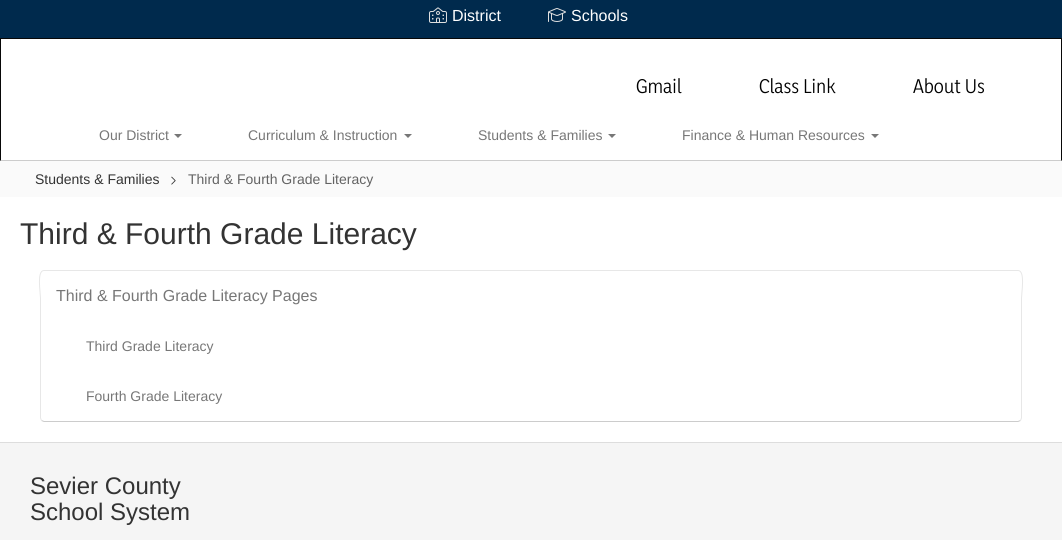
import math
import cairocffi as cairo

surface = cairo.ImageSurface(cairo.FORMAT_RGB24, 1062, 540)
cr = cairo.Context(surface)
options = cairo.FontOptions()
options.set_hint_metrics(cairo.HINT_METRICS_OFF)
options.set_hint_style(cairo.HINT_STYLE_NONE)
cr.set_font_options(options)
cr.set_miter_limit(4)


def use_color(code):
    cr.set_source_rgb(*(v / 255 for v in bytes.fromhex(code[-6:])))


def picture(path, x, y, w, h):
    cr.save()
    cr.set_source_surface(cairo.ImageSurface.create_from_png(path), x, y)
    cr.rectangle(x, y, w, h)
    cr.fill()
    cr.restore()


use_color("#ffffff")
cr.paint()
use_color("#002a4d")
cr.rectangle(0, 0, 1062, 38)
cr.fill()
picture("img1.png", 429, 7, 18, 16)
cr.select_font_face("Liberation Sans")
cr.set_font_size(16)
use_color("#ffffff")
cr.move_to(452, 21)
cr.show_text("District")
picture("img2.png", 548, 8, 18, 14)
cr.move_to(571, 21)
cr.show_text("Schools")
use_color("#080808")
cr.rectangle(0, 38, 1062, 1)
cr.fill()
cr.new_path()
cr.move_to(1062, 38)
cr.line_to(1062, 161)
cr.line_to(1061, 160)
cr.line_to(1061, 39)
cr.close_path()
cr.fill()
cr.set_source_rgba(0, 0, 0, 0.2)
cr.new_path()
cr.move_to(1062, 161)
cr.line_to(0, 161)
cr.line_to(1, 160)
cr.line_to(1061, 160)
cr.close_path()
cr.fill()
use_color("#080808")
cr.new_path()
cr.move_to(0, 161)
cr.line_to(0, 38)
cr.line_to(1, 39)
cr.line_to(1, 160)
cr.close_path()
cr.fill()
cr.select_font_face("Yaldevi")
cr.set_font_size(18)
use_color("#000000")
cr.move_to(636, 93)
cr.show_text("Gmail")
cr.move_to(759, 93)
cr.show_text("Class Link")
cr.move_to(913, 93)
cr.show_text("About Us")
cr.select_font_face("Liberation Sans")
cr.set_font_size(14)
use_color("#777777")
cr.move_to(99, 140)
cr.show_text("Our District")
cr.new_path()
cr.move_to(174, 134)
cr.line_to(182, 134)
cr.line_to(178, 138)
cr.close_path()
cr.fill()
cr.move_to(248, 140)
cr.show_text("Curriculum & Instruction")
cr.new_path()
cr.move_to(404, 134)
cr.line_to(412, 134)
cr.line_to(408, 138)
cr.close_path()
cr.fill()
cr.move_to(478, 140)
cr.show_text("Students & Families")
cr.new_path()
cr.move_to(608, 134)
cr.line_to(616, 134)
cr.line_to(612, 138)
cr.close_path()
cr.fill()
cr.move_to(682, 140)
cr.show_text("Finance & Human Resources")
cr.new_path()
cr.move_to(871, 134)
cr.line_to(879, 134)
cr.line_to(875, 138)
cr.close_path()
cr.fill()
use_color("#fafafa")
cr.rectangle(0, 161, 1062, 36)
cr.fill()
use_color("#333333")
cr.move_to(35, 184)
cr.show_text("Students & Families")
picture("img3.png", 171, 176, 5, 9)
use_color("#636363")
cr.move_to(188, 184)
cr.show_text("Third & Fourth Grade Literacy")
cr.set_font_size(30)
use_color("#333333")
cr.move_to(20, 244)
cr.show_text("Third & Fourth Grade Literacy")
cr.new_path()
cr.move_to(1020.5, 420.5)
cr.line_to(1018, 421.5)
cr.line_to(44, 421.5)
cr.line_to(41.5, 420.5)
use_color("#cccccc")
cr.set_line_width(1)
cr.stroke()
cr.new_path()
cr.move_to(41.5, 420.5)
cr.line_to(40.5, 418)
cr.line_to(40.5, 298)
cr.curve_to(40.5, 293, 36.5, 270.5, 44, 270.5)
cr.line_to(1018, 270.5)
cr.curve_to(1025.5, 270.5, 1021.5, 293, 1021.5, 298)
cr.line_to(1021.5, 418)
cr.line_to(1020.5, 420.5)
use_color("#e7e7e7")
cr.stroke()
cr.set_font_size(16)
use_color("#777777")
cr.move_to(56, 301)
cr.show_text("Third & Fourth Grade Literacy Pages")
cr.set_font_size(14)
cr.move_to(86, 351)
cr.show_text("Third Grade Literacy")
cr.move_to(86, 401)
cr.show_text("Fourth Grade Literacy")
use_color("#f5f5f5")
cr.rectangle(0, 443, 1062, 97)
cr.fill()
use_color("#dddddd")
cr.rectangle(0, 442, 1062, 1)
cr.fill()
cr.set_font_size(24)
use_color("#333333")
cr.move_to(30, 494)
cr.show_text("Sevier County")
cr.move_to(30, 520)
cr.show_text("School System")
surface.write_to_png("result.png")
